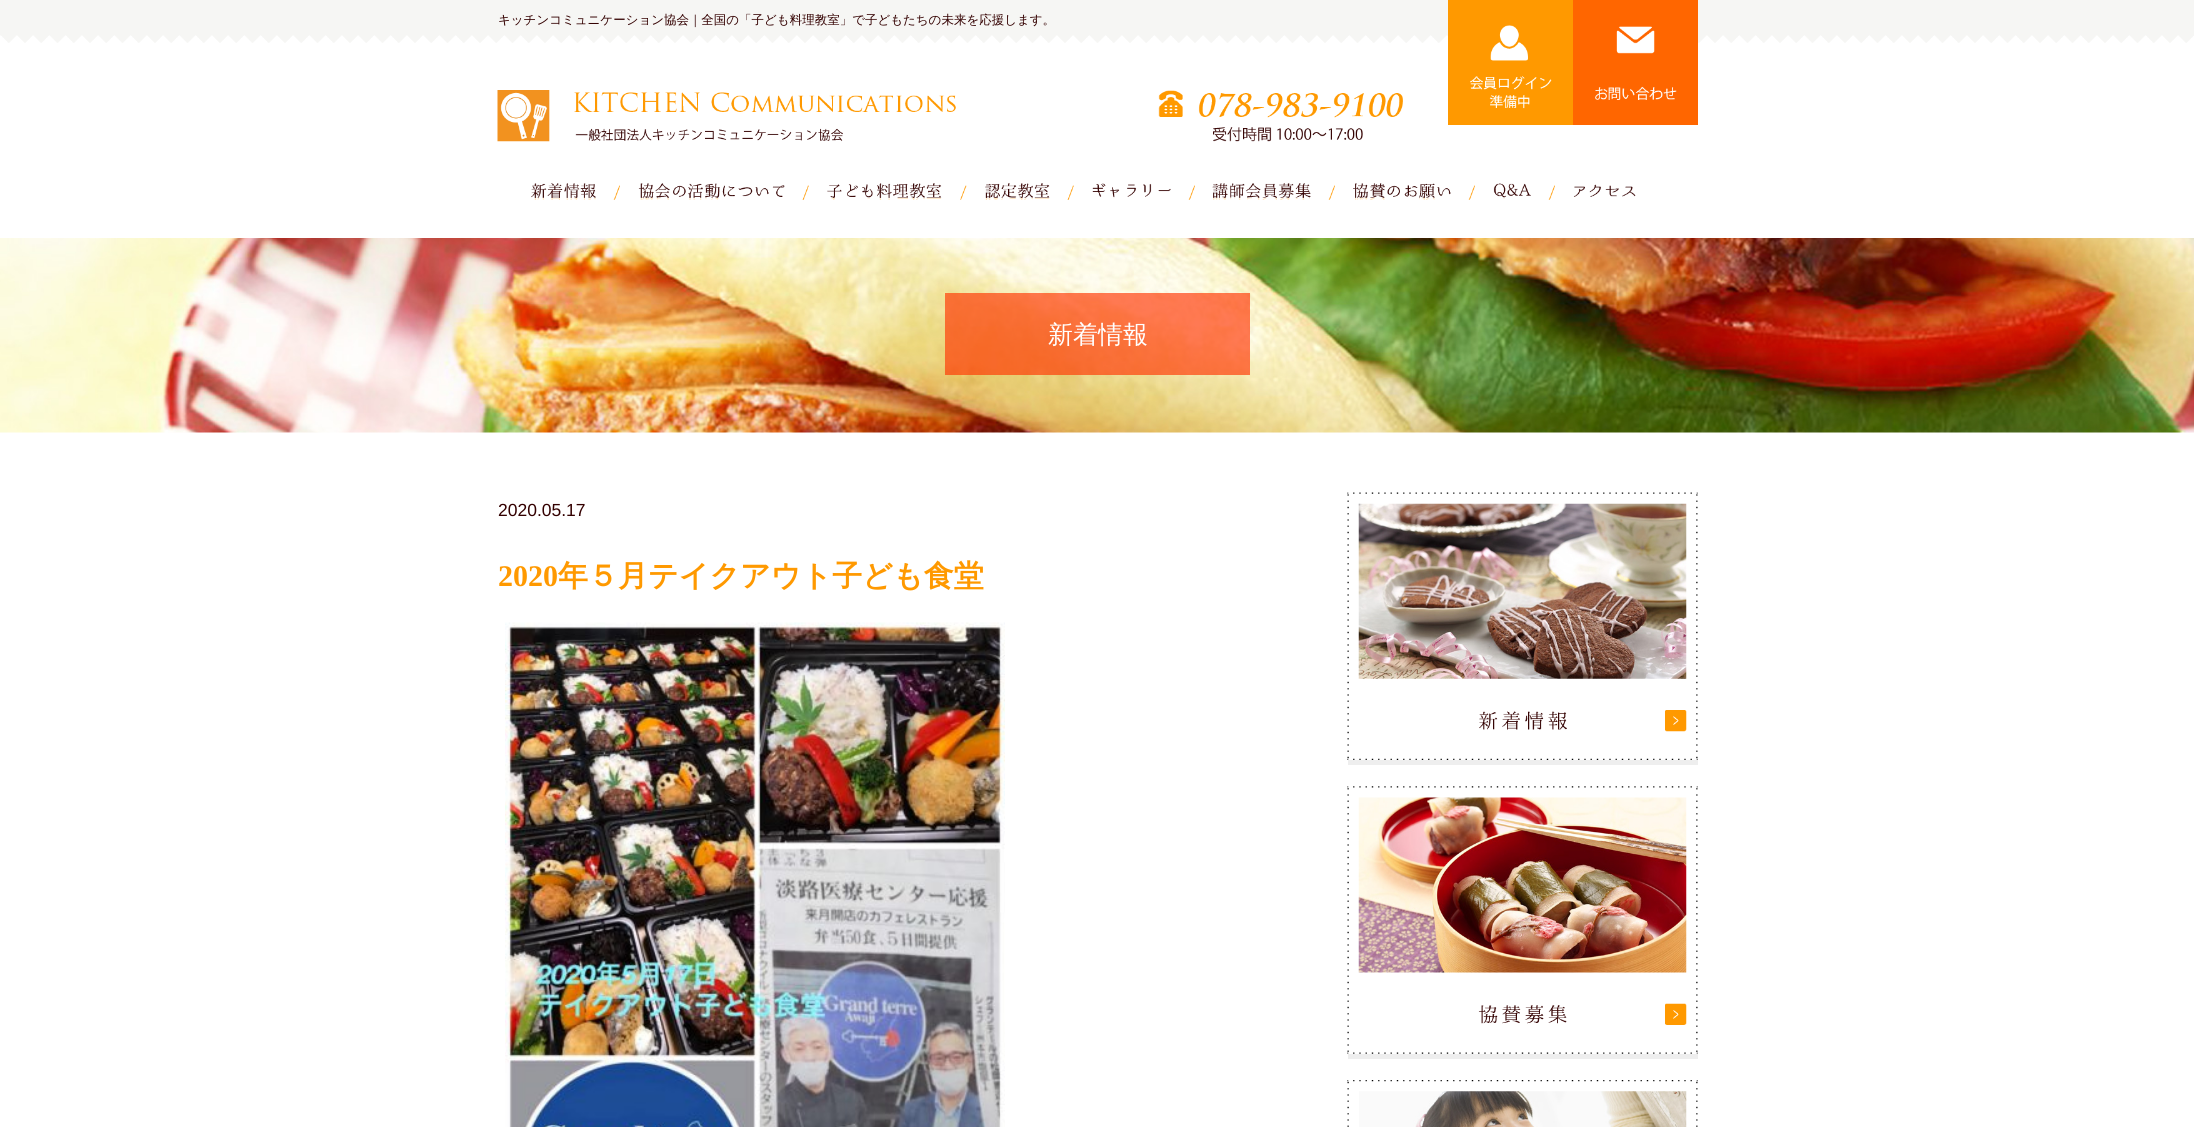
import math
import cairocffi as cairo

surface = cairo.ImageSurface(cairo.FORMAT_RGB24, 2194, 1127)
cr = cairo.Context(surface)
options = cairo.FontOptions()
options.set_hint_metrics(cairo.HINT_METRICS_OFF)
options.set_hint_style(cairo.HINT_STYLE_NONE)
cr.set_font_options(options)
cr.set_miter_limit(4)


def use_color(code):
    cr.set_source_rgb(*(v / 255 for v in bytes.fromhex(code[-6:])))


def picture(path, x, y, w, h):
    cr.save()
    cr.set_source_surface(cairo.ImageSurface.create_from_png(path), x, y)
    cr.rectangle(x, y, w, h)
    cr.fill()
    cr.restore()


use_color("#ffffff")
cr.paint()
picture("img1.png", 0, 0, 2194, 43)
cr.select_font_face("WenQuanYi Zen Hei Medium")
cr.set_font_size(12.5)
use_color("#330000")
cr.move_to(498, 24)
cr.show_text("キッチンコミュニケーション協会｜全国の「子ども料理教室」で子どもたちの未来を応援します。")
use_color("#ff9900")
cr.rectangle(1448, 0, 125, 125)
cr.fill()
picture("img2.png", 1470, 25, 82, 84)
use_color("#ff6600")
cr.rectangle(1573, 0, 125, 125)
cr.fill()
picture("img3.png", 1595, 26, 82, 74)
picture("img4.png", 497, 90, 459, 52)
picture("img5.png", 1158, 90, 245, 52)
picture("img19.png", 531, 198, 65, 2)
picture("img6.png", 531, 183, 65, 16)
picture("img7.png", 613, 185, 7, 15)
picture("img20.png", 638, 198, 147, 2)
picture("img8.png", 638, 183, 147, 16)
picture("img9.png", 802, 185, 7, 15)
picture("img21.png", 827, 198, 115, 2)
picture("img10.png", 827, 183, 115, 16)
picture("img11.png", 960, 185, 7, 15)
picture("img22.png", 985, 198, 65, 2)
picture("img12.png", 985, 183, 65, 16)
picture("img9.png", 1067, 185, 7, 15)
picture("img23.png", 1092, 198, 79, 1)
picture("img13.png", 1092, 183, 79, 16)
picture("img7.png", 1188, 185, 7, 15)
picture("img24.png", 1212, 198, 99, 2)
picture("img14.png", 1212, 183, 99, 16)
picture("img7.png", 1328, 185, 7, 15)
picture("img25.png", 1353, 198, 98, 2)
picture("img15.png", 1353, 183, 98, 16)
picture("img7.png", 1468, 185, 7, 15)
picture("img26.png", 1493, 198, 38, 1)
picture("img16.png", 1493, 183, 38, 16)
picture("img17.png", 1548, 185, 7, 15)
picture("img18.png", 1573, 184, 63, 14)
picture("img27.png", 0, 238, 2194, 195)
cr.set_source_rgba(1, 0.2, 0, 0.65)
cr.rectangle(945, 293, 305, 82)
cr.fill()
cr.set_font_size(25)
use_color("#ffffff")
cr.move_to(1048, 343)
cr.show_text("新着情報")
cr.select_font_face("Liberation Sans")
cr.set_font_size(17.5)
use_color("#330000")
cr.move_to(498, 516)
cr.show_text("2020.05.17")
cr.select_font_face("Liberation Serif", cairo.FONT_SLANT_NORMAL, cairo.FONT_WEIGHT_BOLD)
cr.set_font_size(30)
use_color("#ff9900")
cr.move_to(498, 586)
cr.show_text("2020")
cr.select_font_face("WenQuanYi Zen Hei", cairo.FONT_SLANT_NORMAL, cairo.FONT_WEIGHT_BOLD)
cr.move_to(558, 586)
cr.show_text("年５月テイクアウト子ども食堂")
picture("img28.png", 505, 622, 500, 505)
use_color("#eeeeee")
cr.rectangle(1348, 760, 350, 5)
cr.fill()
picture("img29.png", 1347, 492, 351, 268)
picture("img30.png", 1358, 503, 329, 176)
picture("img31.png", 1665, 710, 22, 22)
picture("img32.png", 1479, 711, 88, 19)
cr.rectangle(1348, 1054, 350, 5)
cr.fill()
picture("img33.png", 1347, 786, 351, 268)
picture("img34.png", 1358, 797, 329, 176)
picture("img35.png", 1665, 1003, 22, 22)
picture("img36.png", 1478, 1005, 89, 19)
picture("img37.png", 1347, 1080, 351, 47)
picture("img38.png", 1359, 1091, 328, 36)
surface.write_to_png("result.png")
